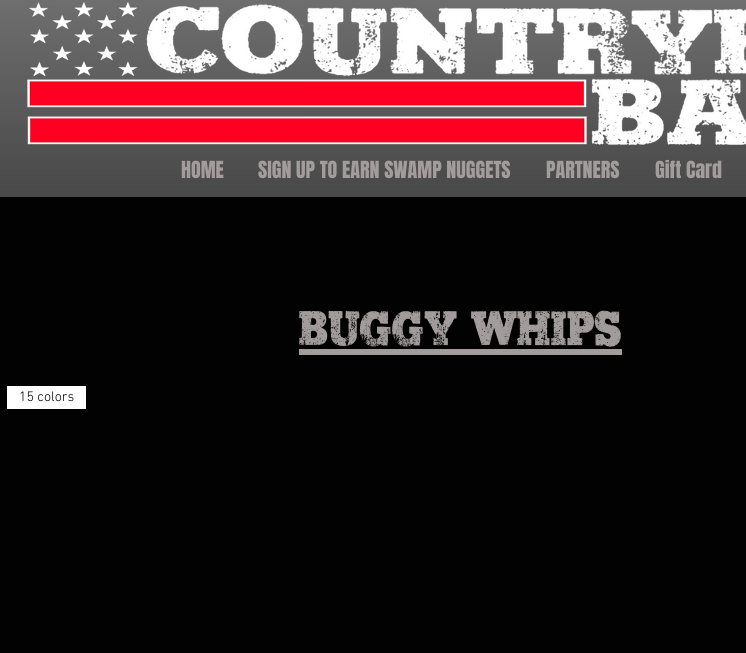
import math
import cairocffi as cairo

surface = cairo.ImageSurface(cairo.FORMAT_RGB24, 746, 653)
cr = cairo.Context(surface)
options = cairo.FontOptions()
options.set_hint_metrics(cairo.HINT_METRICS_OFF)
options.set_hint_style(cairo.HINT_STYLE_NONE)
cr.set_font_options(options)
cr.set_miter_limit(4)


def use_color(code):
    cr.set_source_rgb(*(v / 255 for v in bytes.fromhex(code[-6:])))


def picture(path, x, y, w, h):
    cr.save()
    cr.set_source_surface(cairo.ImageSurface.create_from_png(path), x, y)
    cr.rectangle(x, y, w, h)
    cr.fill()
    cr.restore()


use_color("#020202")
cr.paint()
use_color("#3d3c3c")
cr.rectangle(0, 0, 746, 197)
cr.fill()
picture("img1.png", 0, 0, 746, 197)
picture("img2.png", 27, 2, 719, 144)
cr.select_font_face("Anton")
cr.set_font_size(20)
use_color("#a29c9c")
cr.move_to(181, 178)
cr.show_text("HOME")
cr.move_to(258, 178)
cr.show_text("SIGN UP TO EARN SWAMP NUGGETS")
cr.move_to(546, 178)
cr.show_text("PARTNERS")
cr.move_to(655, 178)
cr.show_text("Gift Card")
cr.select_font_face("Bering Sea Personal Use")
cr.set_font_size(61)
cr.move_to(299, 345)
cr.show_text("buggy whips")
cr.rectangle(299, 349, 323, 6)
cr.fill()
use_color("#ffffff")
cr.rectangle(7, 386, 79, 23)
cr.fill()
cr.select_font_face("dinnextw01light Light")
cr.set_font_size(14)
use_color("#020202")
cr.move_to(19, 401)
cr.show_text("15 colors")
surface.write_to_png("result.png")
